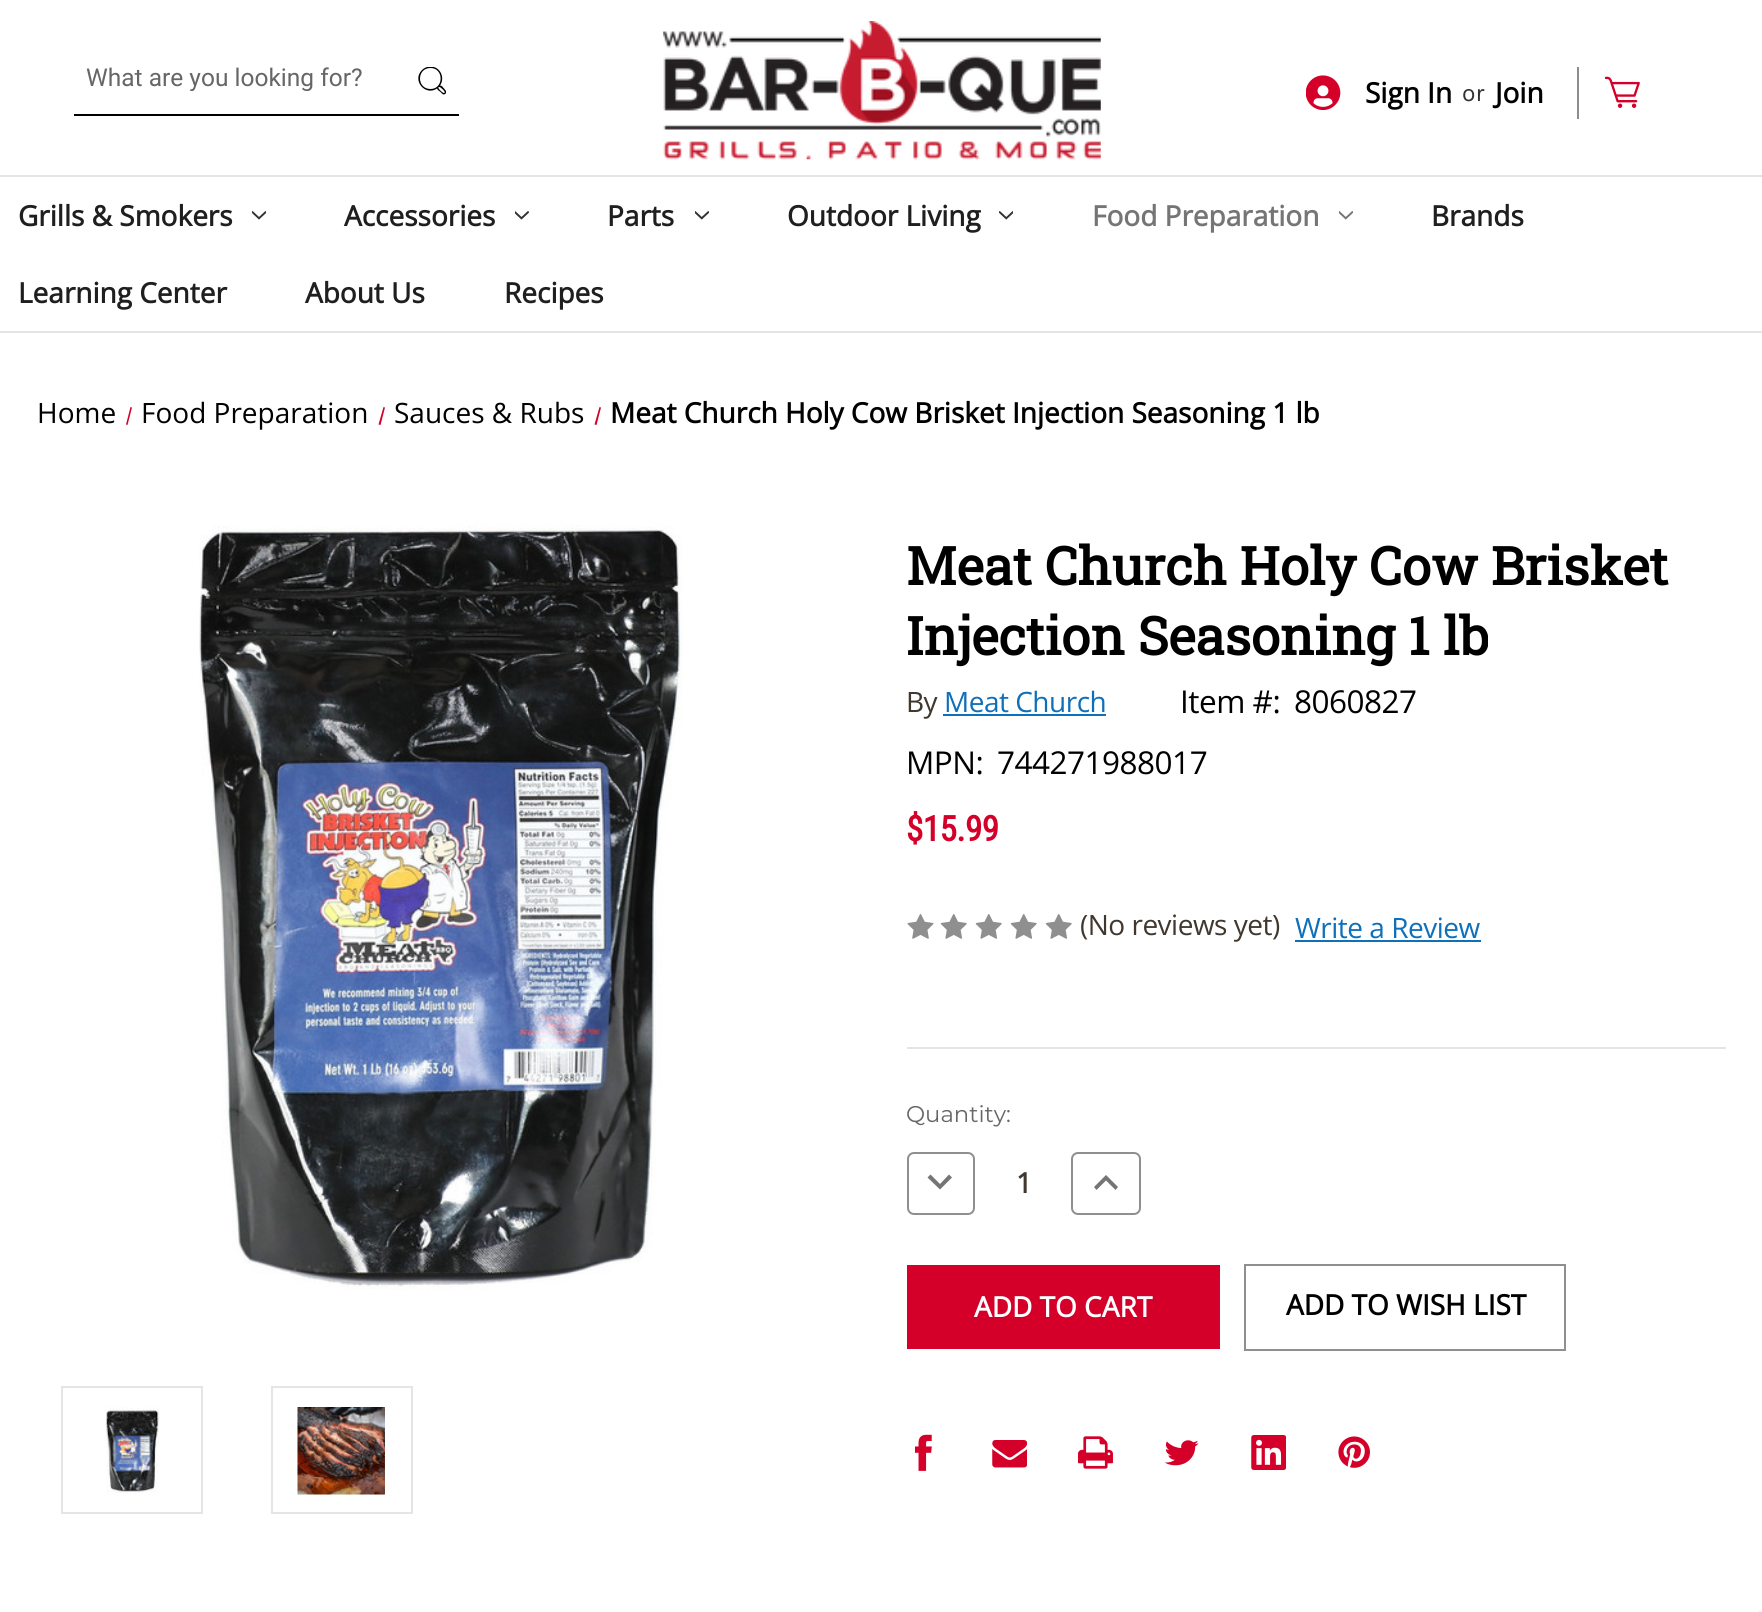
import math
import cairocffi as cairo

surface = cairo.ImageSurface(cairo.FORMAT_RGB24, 1762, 1612)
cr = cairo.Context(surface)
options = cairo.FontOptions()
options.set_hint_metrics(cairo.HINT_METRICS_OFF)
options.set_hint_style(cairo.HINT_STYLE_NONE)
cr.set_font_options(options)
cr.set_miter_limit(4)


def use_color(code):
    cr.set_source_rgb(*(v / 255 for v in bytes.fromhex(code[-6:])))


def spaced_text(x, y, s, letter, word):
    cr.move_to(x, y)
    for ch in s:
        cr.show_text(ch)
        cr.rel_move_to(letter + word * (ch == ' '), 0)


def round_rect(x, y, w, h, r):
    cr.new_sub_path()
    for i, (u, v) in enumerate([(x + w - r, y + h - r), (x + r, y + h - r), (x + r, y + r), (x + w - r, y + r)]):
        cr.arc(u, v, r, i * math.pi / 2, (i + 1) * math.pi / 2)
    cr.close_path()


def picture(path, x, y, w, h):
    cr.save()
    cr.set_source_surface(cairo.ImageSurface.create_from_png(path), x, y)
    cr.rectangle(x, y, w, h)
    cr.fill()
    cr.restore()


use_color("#ffffff")
cr.paint()
use_color("#e5e5e5")
cr.rectangle(0, 331, 1762, 2)
cr.fill()
picture("img1.png", 663, 21, 438, 139)
use_color("#000000")
cr.rectangle(74, 114, 385, 2)
cr.fill()
cr.save()
cr.rectangle(86, 63, 360, 28)
cr.clip()
cr.select_font_face("Roboto")
cr.set_font_size(24.5)
use_color("#666666")
cr.move_to(86, 86)
cr.show_text("What are you looking for?")
cr.restore()
cr.save()
cr.rectangle(418, 67, 28, 28)
cr.clip()
cr.new_path()
cr.move_to(430.5, 66.5)
cr.curve_to(440, 66.5, 445.5, 77.5, 440, 85.5)
cr.curve_to(442, 85.5, 443, 87.5, 444, 88.5)
cr.line_to(446, 91)
cr.curve_to(447, 93, 444.5, 95.5, 442.5, 94)
cr.line_to(440, 91.5)
cr.curve_to(439, 91, 437.5, 90, 437, 88.5)
cr.curve_to(425.5, 96.5, 411.5, 80.5, 422, 70)
cr.curve_to(424, 68, 427, 66.5, 430.5, 66.5)
cr.close_path()
cr.move_to(439.5, 87)
cr.curve_to(435.5, 87, 443, 93, 443.5, 93)
cr.curve_to(447.5, 93, 440.5, 87, 439.5, 87)
cr.close_path()
cr.move_to(430.5, 68)
cr.curve_to(416.5, 68, 416.5, 89, 430.5, 89)
cr.curve_to(444, 89, 444, 68, 430.5, 68)
cr.close_path()
cr.fill()
cr.restore()
picture("img2.png", 1306, 75, 35, 35)
cr.select_font_face("Open Sans", cairo.FONT_SLANT_NORMAL, cairo.FONT_WEIGHT_BOLD)
cr.set_font_size(28)
cr.move_to(1365, 103)
cr.show_text("Sign In")
cr.select_font_face("Karla")
cr.set_font_size(24.5)
use_color("#333333")
cr.move_to(1462, 101)
cr.show_text("or")
cr.select_font_face("Open Sans", cairo.FONT_SLANT_NORMAL, cairo.FONT_WEIGHT_BOLD)
cr.set_font_size(28)
use_color("#000000")
cr.move_to(1495, 103)
cr.show_text("Join")
use_color("#8a8e90")
cr.rectangle(1577, 67, 2, 52)
cr.fill()
picture("img3.png", 1605, 76, 35, 32)
use_color("#e5e5e5")
cr.rectangle(0, 175, 1762, 2)
cr.fill()
use_color("#1f1f1f")
cr.move_to(18, 226)
cr.show_text("Grills & Smokers")
picture("img4.png", 252, 211, 14, 9)
cr.move_to(344, 226)
cr.show_text("Accessories")
picture("img5.png", 515, 211, 14, 9)
cr.move_to(607, 226)
cr.show_text("Parts")
picture("img6.png", 695, 211, 14, 9)
cr.move_to(787, 226)
cr.show_text("Outdoor Living")
picture("img7.png", 999, 211, 14, 9)
use_color("#757575")
cr.move_to(1092, 226)
cr.show_text("Food Preparation")
picture("img8.png", 1339, 211, 14, 9)
use_color("#1f1f1f")
cr.move_to(1431, 226)
cr.show_text("Brands")
cr.move_to(18, 303)
cr.show_text("Learning Center")
cr.move_to(305, 303)
cr.show_text("About Us")
cr.move_to(504, 303)
cr.show_text("Recipes")
cr.select_font_face("Open Sans")
use_color("#000000")
cr.move_to(37, 423)
cr.show_text("Home")
use_color("#d40029")
cr.new_path()
cr.move_to(130.5, 407)
cr.line_to(132, 407.5)
cr.line_to(127.5, 425)
cr.line_to(126, 424.5)
cr.close_path()
cr.fill()
use_color("#000000")
cr.move_to(141, 423)
cr.show_text("Food Preparation")
use_color("#d40029")
cr.new_path()
cr.move_to(383.5, 407)
cr.line_to(385, 407.5)
cr.line_to(380.5, 425)
cr.line_to(378.5, 424.5)
cr.close_path()
cr.fill()
use_color("#000000")
cr.move_to(394, 423)
cr.show_text("Sauces & Rubs")
use_color("#d40029")
cr.new_path()
cr.move_to(599.5, 407)
cr.line_to(601, 407.5)
cr.line_to(596.5, 425)
cr.line_to(594.5, 424.5)
cr.close_path()
cr.fill()
cr.select_font_face("Open Sans", cairo.FONT_SLANT_NORMAL, cairo.FONT_WEIGHT_BOLD)
use_color("#000000")
cr.move_to(610, 423)
cr.show_text("Meat Church Holy Cow Brisket Injection Seasoning 1 lb")
picture("img9.png", 199, 525, 484, 765)
cr.rectangle(62, 1387, 140, 126)
use_color("#e5e5e5")
cr.stroke()
picture("img10.png", 106, 1407, 53, 87)
cr.rectangle(272, 1387, 140, 126)
cr.stroke()
picture("img11.png", 297, 1407, 88, 88)
cr.rectangle(907, 1047, 819, 2)
cr.fill()
cr.select_font_face("Roboto Slab", cairo.FONT_SLANT_NORMAL, cairo.FONT_WEIGHT_BOLD)
cr.set_font_size(52.5)
use_color("#000000")
cr.move_to(906, 585)
cr.show_text("Meat Church Holy Cow Brisket")
cr.move_to(906, 655)
cr.show_text("Injection Seasoning 1 lb")
cr.select_font_face("Open Sans")
cr.set_font_size(28)
use_color("#40372e")
spaced_text(906, 712, "By", -0.5, 0)
use_color("#0e6fba")
spaced_text(944, 712, "Meat Church", -0.5, 0)
cr.rectangle(943, 714, 163, 2)
cr.fill()
cr.set_font_size(31.5)
use_color("#000000")
spaced_text(1180, 713, "Item #:", -0.5, 0)
spaced_text(1294, 713, "8060827", -0.5, 0)
spaced_text(906, 774, "MPN:", -0.5, 0)
spaced_text(997, 774, "744271988017", -0.5, 0)
cr.select_font_face("Roboto Condensed", cairo.FONT_SLANT_NORMAL, cairo.FONT_WEIGHT_BOLD)
cr.set_font_size(35)
use_color("#d40029")
spaced_text(906, 841, "$15.99", -0.5, 0)
picture("img12.png", 907, 914, 27, 25)
picture("img13.png", 940, 914, 27, 25)
picture("img13.png", 975, 914, 27, 25)
picture("img13.png", 1010, 914, 27, 25)
picture("img13.png", 1045, 914, 27, 25)
cr.select_font_face("Open Sans")
cr.set_font_size(28)
use_color("#40372e")
spaced_text(1080, 935, "(No reviews yet)", -0.5, 0)
use_color("#0e6fba")
spaced_text(1295, 938, "Write a Review", -0.5, 0)
cr.rectangle(1295, 940, 186, 2)
cr.fill()
cr.select_font_face("Montserrat")
cr.set_font_size(22.75)
use_color("#666666")
cr.move_to(906, 1122)
cr.show_text("Quantity:")
round_rect(908, 1153, 66, 61, 6)
use_color("#8f8f8f")
cr.stroke()
use_color("#757575")
cr.new_path()
cr.move_to(930.5, 1174.5)
cr.line_to(940, 1184)
cr.line_to(949, 1174.5)
cr.line_to(952, 1177.5)
cr.line_to(940, 1189.5)
cr.line_to(927.5, 1177.5)
cr.close_path()
cr.fill()
cr.select_font_face("Open Sans", cairo.FONT_SLANT_NORMAL, cairo.FONT_WEIGHT_BOLD)
cr.set_font_size(28)
use_color("#40372e")
spaced_text(1016, 1193, "1", -0.5, 0)
round_rect(1072, 1153, 68, 61, 6)
use_color("#8f8f8f")
cr.stroke()
use_color("#757575")
cr.new_path()
cr.move_to(1096.5, 1190)
cr.line_to(1106, 1180.5)
cr.line_to(1115.5, 1190)
cr.line_to(1118, 1187)
cr.line_to(1106, 1175)
cr.line_to(1094, 1187)
cr.close_path()
cr.fill()
use_color("#d40029")
cr.rectangle(907, 1265, 313, 84)
cr.fill()
use_color("#ffffff")
cr.move_to(974, 1317)
cr.show_text("ADD TO CART")
cr.rectangle(1245, 1265, 320, 85)
use_color("#8f8f8f")
cr.stroke()
use_color("#000000")
cr.move_to(1286, 1315)
cr.show_text("ADD TO WISH LIST")
picture("img14.png", 914, 1434, 18, 37)
picture("img15.png", 992, 1440, 35, 28)
picture("img16.png", 1078, 1436, 35, 33)
picture("img17.png", 1164, 1440, 35, 26)
picture("img18.png", 1251, 1435, 35, 35)
picture("img19.png", 1338, 1436, 32, 32)
use_color("#f5f5f5")
cr.rectangle(1759, 1610, 3, 2)
cr.fill()
surface.write_to_png("result.png")
